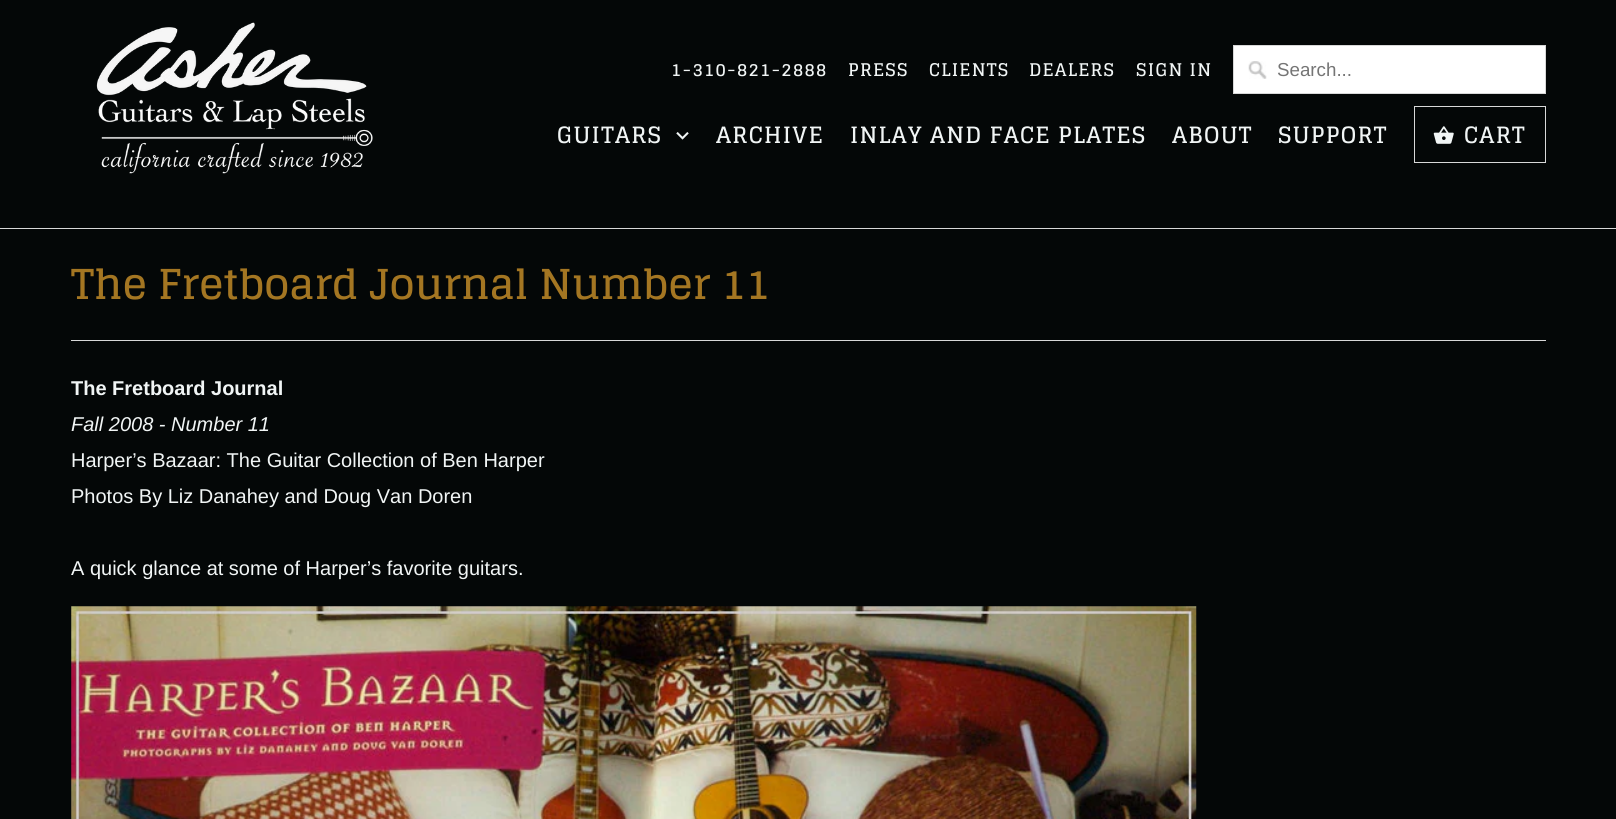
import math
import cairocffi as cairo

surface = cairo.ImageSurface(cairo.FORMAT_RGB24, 1616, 819)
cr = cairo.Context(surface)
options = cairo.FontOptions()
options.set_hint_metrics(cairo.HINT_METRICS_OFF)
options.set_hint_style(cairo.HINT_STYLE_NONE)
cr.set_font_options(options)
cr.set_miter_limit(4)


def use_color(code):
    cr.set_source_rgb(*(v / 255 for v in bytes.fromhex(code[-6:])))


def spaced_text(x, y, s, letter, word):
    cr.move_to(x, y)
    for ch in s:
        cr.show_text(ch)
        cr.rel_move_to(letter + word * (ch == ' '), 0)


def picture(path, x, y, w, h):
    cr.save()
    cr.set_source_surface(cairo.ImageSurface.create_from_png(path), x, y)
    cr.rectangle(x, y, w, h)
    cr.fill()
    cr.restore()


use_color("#040707")
cr.paint()
use_color("#d8d8d8")
cr.rectangle(0, 228, 1616, 1)
cr.fill()
picture("img1.png", 96, 22, 277, 152)
cr.select_font_face("Glegoo", cairo.FONT_SLANT_NORMAL, cairo.FONT_WEIGHT_BOLD)
cr.set_font_size(17.5)
use_color("#f1f5f5")
spaced_text(671, 76, "1-310-821-2888", 1.25, 0)
spaced_text(848, 76, "PRESS", 1.25, 0)
spaced_text(929, 76, "CLIENTS", 1.25, 0)
spaced_text(1029, 76, "DEALERS", 1.25, 0)
spaced_text(1136, 76, "SIGN IN", 1.25, 0)
use_color("#ffffff")
cr.rectangle(1234, 46, 311, 47)
cr.fill()
picture("img2.png", 1248, 61, 19, 18)
cr.rectangle(1233.5, 45.5, 312, 48)
use_color("#d8d8d8")
cr.set_line_width(1)
cr.stroke()
cr.select_font_face("Liberation Sans")
cr.set_font_size(18.75)
use_color("#757575")
cr.move_to(1277, 76)
cr.show_text("Search...")
cr.select_font_face("Glegoo", cairo.FONT_SLANT_NORMAL, cairo.FONT_WEIGHT_BOLD)
cr.set_font_size(22.5)
use_color("#f1f5f5")
spaced_text(557, 143, "GUITARS", 1.25, 0)
picture("img3.png", 676, 132, 13, 8)
spaced_text(716, 143, "ARCHIVE", 1.25, 0)
spaced_text(850, 143, "INLAY AND FACE PLATES", 1.25, 0)
spaced_text(1172, 143, "ABOUT", 1.25, 0)
spaced_text(1278, 143, "SUPPORT", 1.25, 0)
cr.rectangle(1414.5, 106.5, 131, 56)
use_color("#d8d8d8")
cr.stroke()
picture("img4.png", 1433, 126, 21, 18)
use_color("#f1f5f5")
spaced_text(1464, 143, "CART", 1.25, 0)
use_color("#d8d8d8")
cr.rectangle(71, 340, 1475, 1)
cr.fill()
cr.set_font_size(41.25)
use_color("#a47622")
cr.move_to(71, 299)
cr.show_text("The Fretboard Journal Number 11")
cr.select_font_face("Liberation Sans", cairo.FONT_SLANT_NORMAL, cairo.FONT_WEIGHT_BOLD)
cr.set_font_size(20)
use_color("#f1f5f5")
cr.move_to(71, 395)
cr.show_text("The Fretboard Journal")
cr.select_font_face("Liberation Sans", cairo.FONT_SLANT_ITALIC)
cr.move_to(71, 431)
cr.show_text("Fall 2008 - Number 11")
cr.select_font_face("Liberation Sans")
cr.move_to(71, 467)
cr.show_text("Harper’s Bazaar: The Guitar Collection of Ben Harper")
cr.move_to(71, 503)
cr.show_text("Photos By Liz Danahey and Doug Van Doren")
cr.move_to(71, 575)
cr.show_text("A quick glance at some of Harper’s favorite guitars.")
picture("img5.png", 71, 606, 1126, 213)
surface.write_to_png("result.png")
